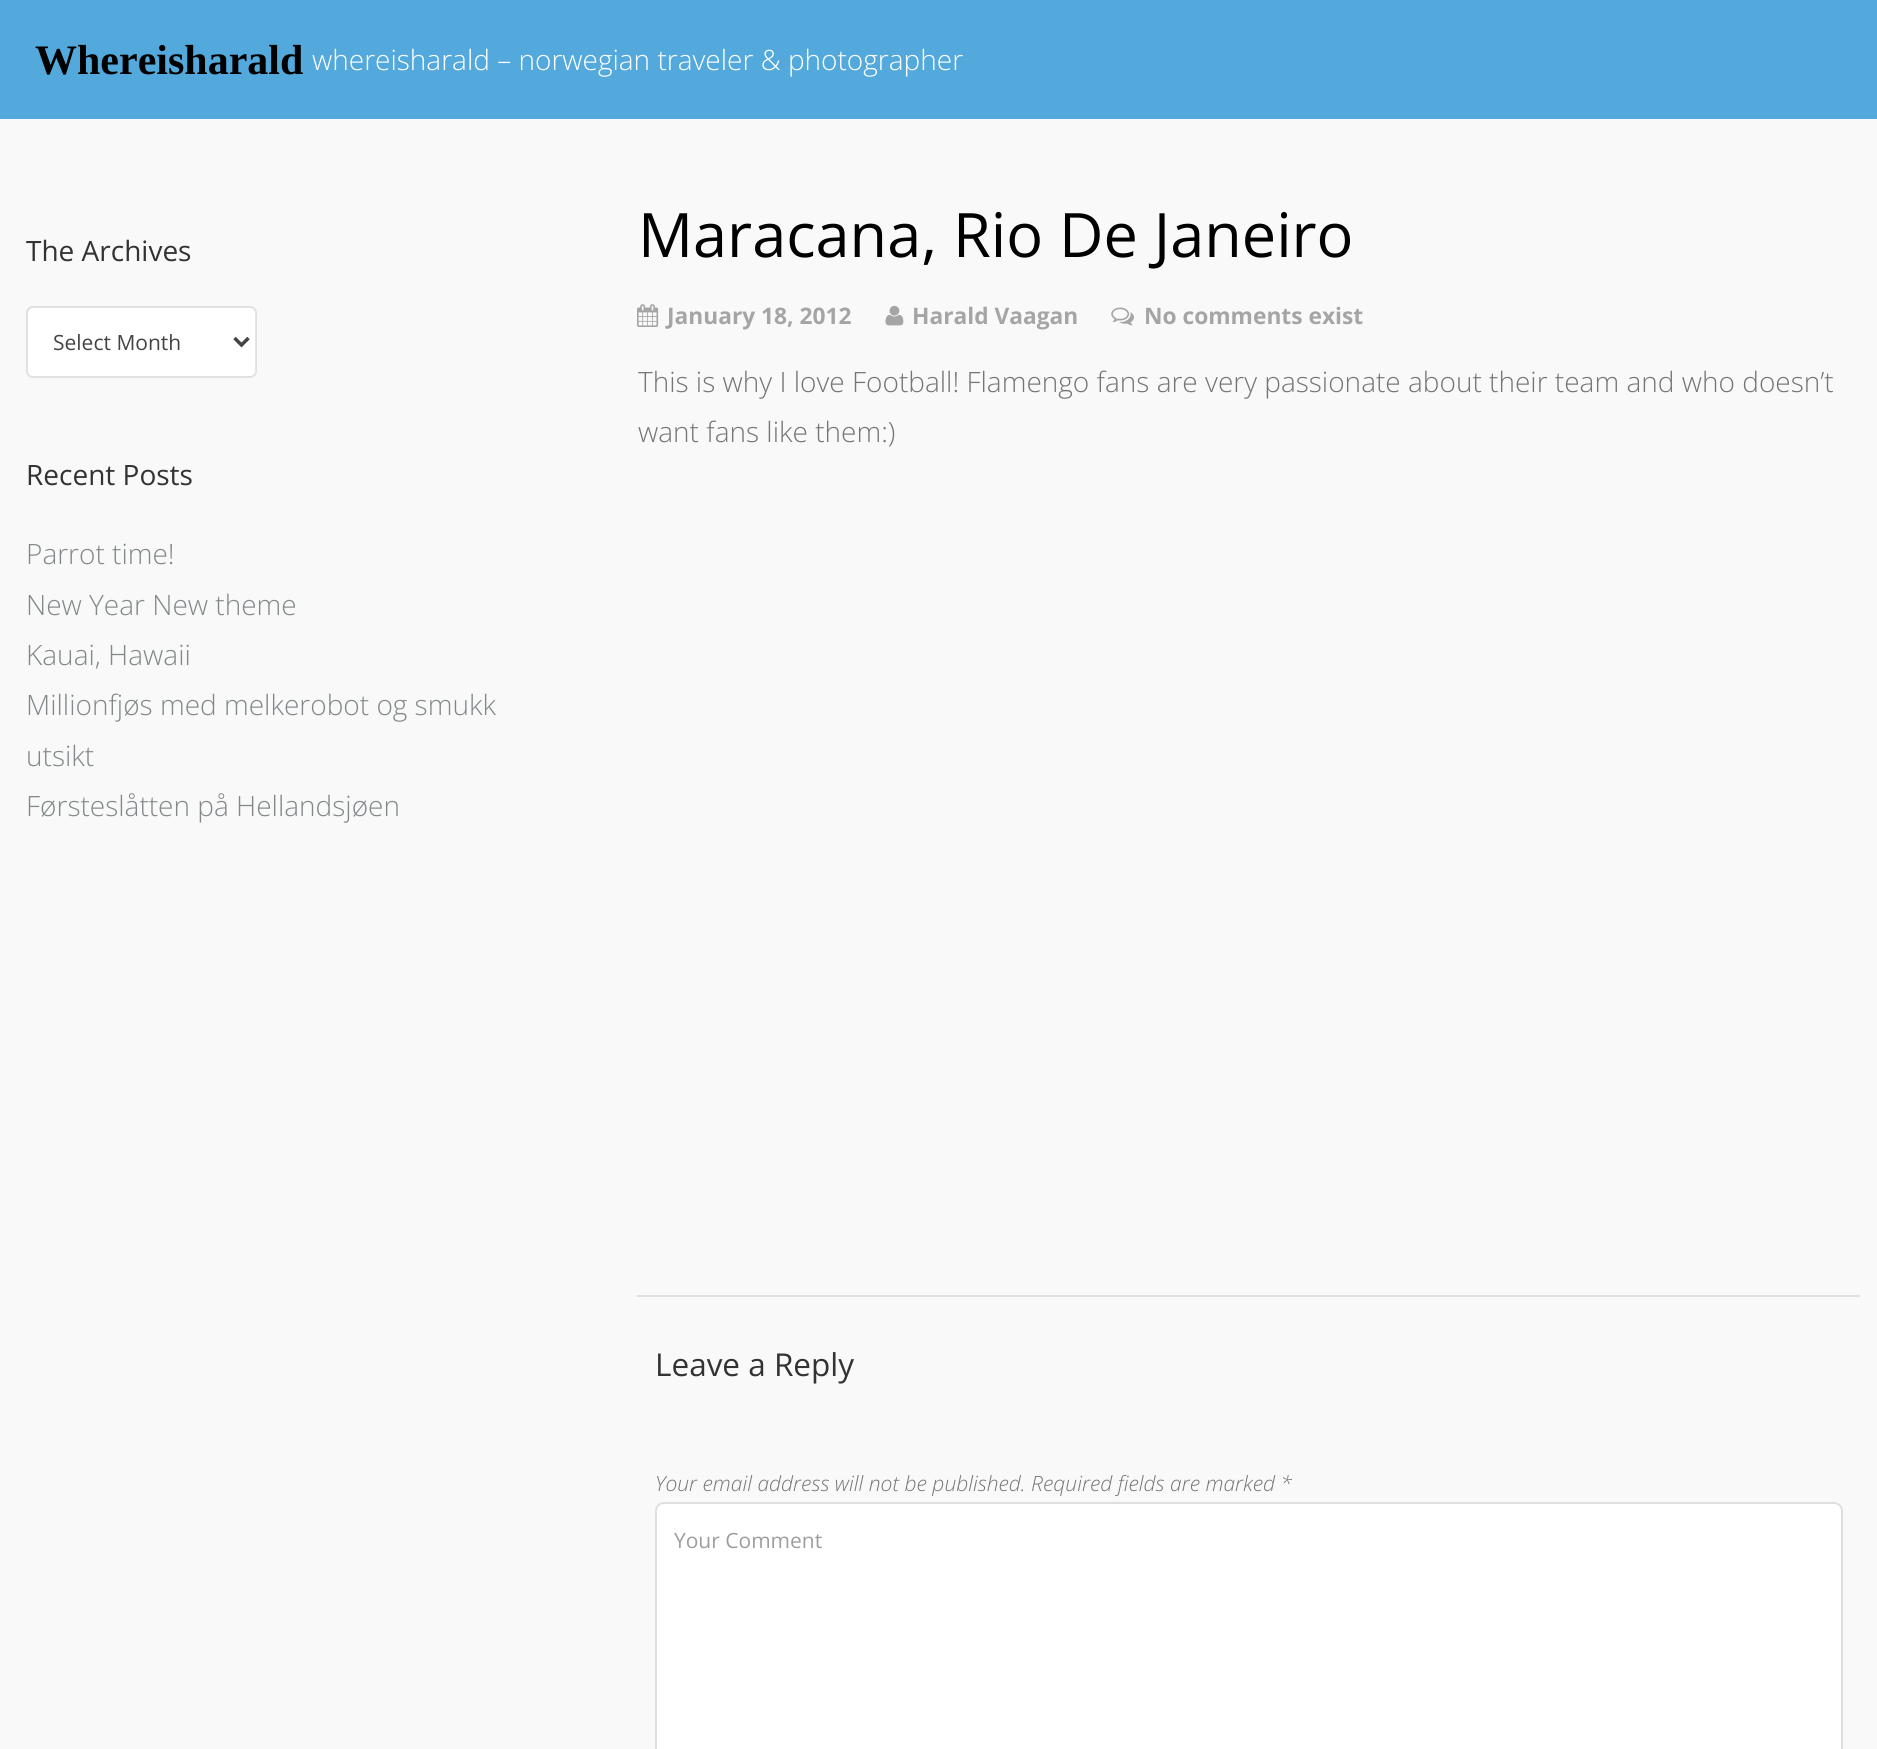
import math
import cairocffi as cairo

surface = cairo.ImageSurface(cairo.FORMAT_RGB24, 1877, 1749)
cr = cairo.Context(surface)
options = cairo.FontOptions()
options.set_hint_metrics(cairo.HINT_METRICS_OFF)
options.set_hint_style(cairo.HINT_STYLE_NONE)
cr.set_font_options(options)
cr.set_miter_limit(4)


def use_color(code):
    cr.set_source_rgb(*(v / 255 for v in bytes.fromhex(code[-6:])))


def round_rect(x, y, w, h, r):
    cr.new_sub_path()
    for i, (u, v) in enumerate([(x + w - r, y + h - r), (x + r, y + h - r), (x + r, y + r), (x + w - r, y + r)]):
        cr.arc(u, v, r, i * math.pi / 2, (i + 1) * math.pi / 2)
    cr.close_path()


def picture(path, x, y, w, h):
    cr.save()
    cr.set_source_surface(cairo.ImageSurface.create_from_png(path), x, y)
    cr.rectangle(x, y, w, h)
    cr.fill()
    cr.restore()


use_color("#f9f9f9")
cr.paint()
use_color("#53a9db")
cr.rectangle(0, 0, 1877, 119)
cr.fill()
cr.select_font_face("Liberation Serif", cairo.FONT_SLANT_NORMAL, cairo.FONT_WEIGHT_BOLD)
cr.set_font_size(42)
use_color("#000000")
cr.move_to(35, 74)
cr.show_text("Whereisharald")
cr.select_font_face("Open Sans Light")
cr.set_font_size(28)
use_color("#ffffff")
cr.move_to(312, 70)
cr.show_text("whereisharald – norwegian traveler & photographer")
cr.select_font_face("Open Sans")
use_color("#333333")
cr.move_to(26, 261)
cr.show_text("The Archives")
use_color("#ffffff")
round_rect(28, 308, 228, 68, 5)
cr.fill()
round_rect(27, 307, 229, 70, 6)
cr.set_source_rgba(0, 0, 0, 0.1)
cr.stroke()
cr.new_path()
cr.move_to(234.5, 338)
cr.line_to(241.5, 345)
cr.line_to(248.5, 338)
use_color("#444444")
cr.set_line_width(3.5)
cr.stroke()
cr.set_font_size(21)
cr.move_to(53, 350)
cr.show_text("Select Month")
cr.set_font_size(28)
use_color("#333333")
cr.move_to(26, 485)
cr.show_text("Recent Posts")
cr.select_font_face("Open Sans Light")
use_color("#82888a")
cr.move_to(26, 564)
cr.show_text("Parrot time!")
cr.move_to(26, 615)
cr.show_text("New Year New theme")
cr.move_to(26, 665)
cr.show_text("Kauai, Hawaii")
cr.move_to(26, 715)
cr.show_text("Millionfjøs med melkerobot og smukk")
cr.move_to(26, 766)
cr.show_text("utsikt")
cr.move_to(26, 816)
cr.show_text("Førsteslåtten på Hellandsjøen")
cr.select_font_face("Open Sans")
cr.set_font_size(61.25)
use_color("#000000")
cr.move_to(638, 257)
cr.show_text("Maracana, Rio De Janeiro")
picture("img1.png", 637, 304, 22, 23)
cr.select_font_face("Open Sans", cairo.FONT_SLANT_NORMAL, cairo.FONT_WEIGHT_BOLD)
cr.set_font_size(22.75)
use_color("#a5a5a5")
cr.move_to(667, 324)
cr.show_text("January 18, 2012")
picture("img2.png", 885, 305, 19, 21)
cr.move_to(912, 324)
cr.show_text("Harald Vaagan")
picture("img3.png", 1111, 307, 23, 19)
cr.move_to(1144, 324)
cr.show_text("No comments exist")
cr.select_font_face("Open Sans Light")
cr.set_font_size(28)
use_color("#757575")
cr.move_to(638, 392)
cr.show_text("This is why I love Football! Flamengo fans are very passionate about their team and who doesn’t")
cr.move_to(638, 442)
cr.show_text("want fans like them:)")
use_color("#e3e0e0")
cr.rectangle(637, 1295, 1223, 2)
cr.fill()
cr.select_font_face("Open Sans")
cr.set_font_size(31.5)
use_color("#333333")
cr.move_to(655, 1376)
cr.show_text("Leave a Reply")
cr.select_font_face("Open Sans Light", cairo.FONT_SLANT_ITALIC)
cr.set_font_size(21)
use_color("#757575")
cr.move_to(655, 1491)
cr.show_text("Your email address will not be published. Required fields are marked *")
use_color("#ffffff")
round_rect(656, 1503, 1185, 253, 7)
cr.fill()
round_rect(656, 1503, 1186, 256, 8)
use_color("#dfdfdf")
cr.set_line_width(2)
cr.stroke()
cr.select_font_face("Open Sans")
use_color("#9e9e9e")
cr.move_to(674, 1548)
cr.show_text("Your Comment")
surface.write_to_png("result.png")
